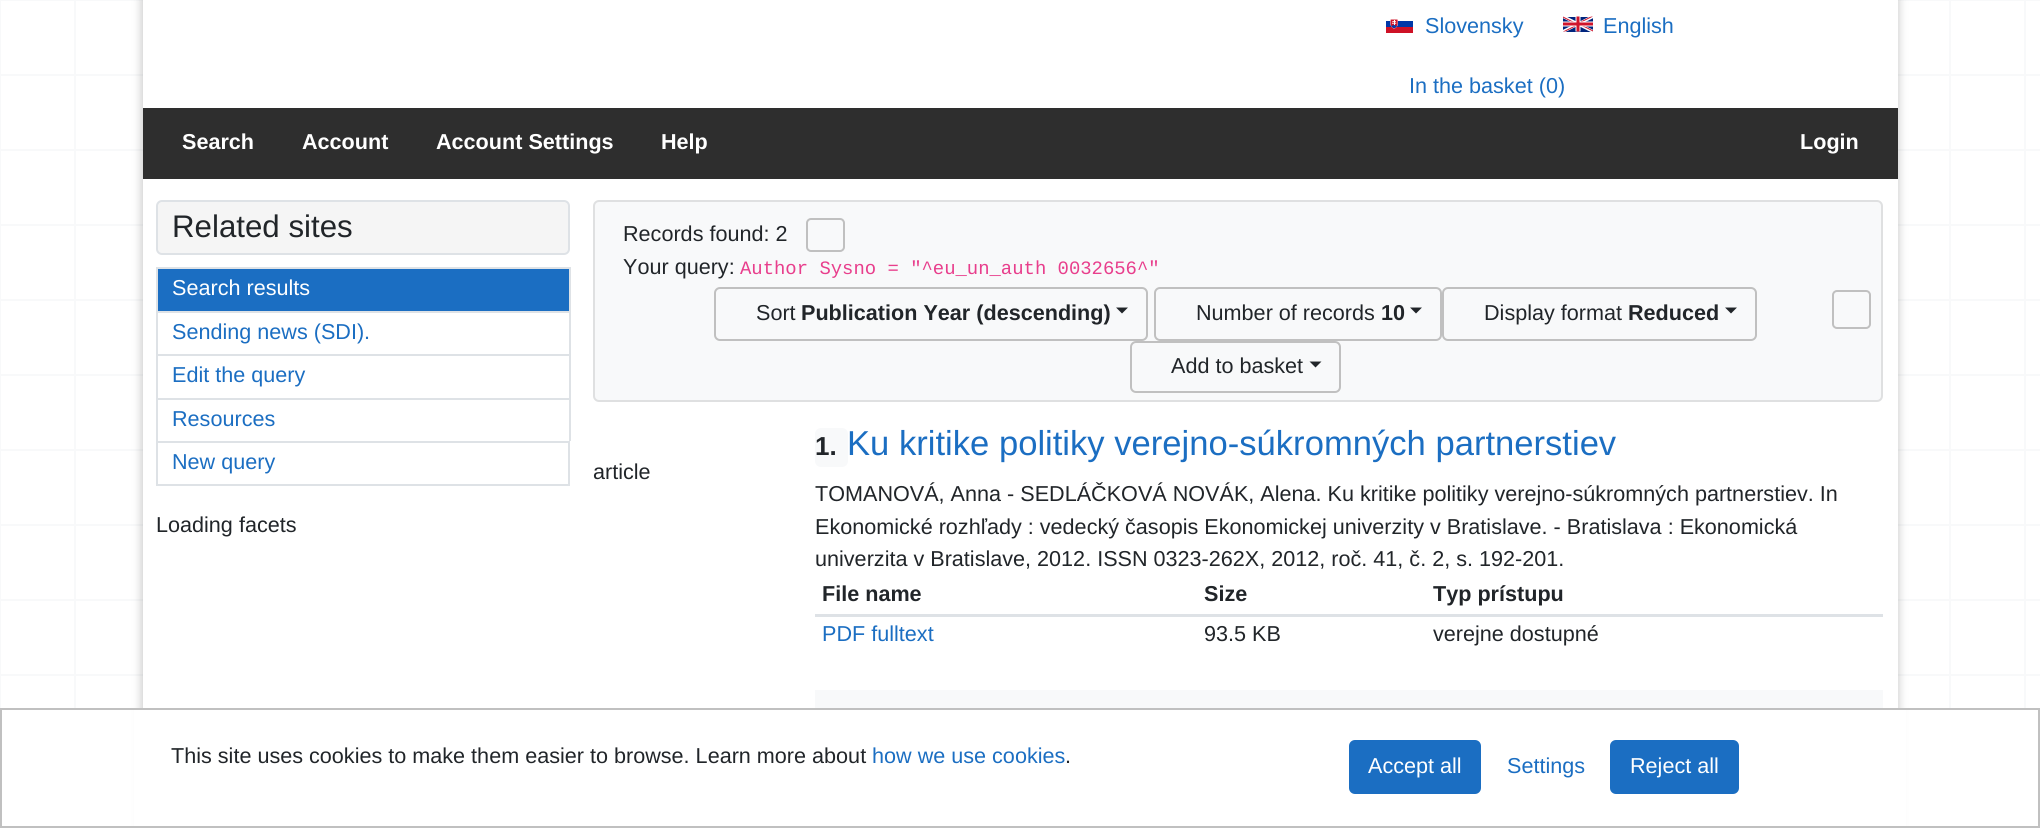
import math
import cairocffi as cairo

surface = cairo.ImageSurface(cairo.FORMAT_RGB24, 2040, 828)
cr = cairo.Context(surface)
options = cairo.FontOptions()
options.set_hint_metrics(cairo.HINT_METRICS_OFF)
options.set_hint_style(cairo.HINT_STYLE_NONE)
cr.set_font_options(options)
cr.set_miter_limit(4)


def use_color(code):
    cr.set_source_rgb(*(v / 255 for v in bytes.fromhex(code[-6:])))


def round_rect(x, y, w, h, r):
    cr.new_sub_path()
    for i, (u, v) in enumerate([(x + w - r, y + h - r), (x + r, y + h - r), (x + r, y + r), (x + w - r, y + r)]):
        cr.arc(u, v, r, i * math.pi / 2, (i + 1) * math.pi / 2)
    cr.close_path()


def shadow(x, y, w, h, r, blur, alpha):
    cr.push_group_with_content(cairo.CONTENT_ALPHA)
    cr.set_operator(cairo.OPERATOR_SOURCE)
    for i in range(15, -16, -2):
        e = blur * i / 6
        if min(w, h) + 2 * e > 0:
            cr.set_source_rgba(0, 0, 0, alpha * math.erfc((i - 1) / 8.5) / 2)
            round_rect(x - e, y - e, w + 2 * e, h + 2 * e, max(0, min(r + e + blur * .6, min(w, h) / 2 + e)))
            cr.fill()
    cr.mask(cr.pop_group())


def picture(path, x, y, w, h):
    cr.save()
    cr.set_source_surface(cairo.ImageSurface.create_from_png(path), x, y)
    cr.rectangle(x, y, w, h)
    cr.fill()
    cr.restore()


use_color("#ffffff")
cr.paint()
picture("img1.png", 0, 1, 2026, 707)
use_color("#f8f9fa")
cr.rectangle(0, 0, 2040, 1)
cr.fill()
cr.rectangle(0, 74, 2040, 2)
cr.fill()
cr.rectangle(0, 149, 2040, 2)
cr.fill()
cr.rectangle(0, 224, 2040, 2)
cr.fill()
cr.rectangle(0, 299, 2040, 2)
cr.fill()
cr.rectangle(0, 374, 2040, 2)
cr.fill()
cr.rectangle(0, 449, 2040, 2)
cr.fill()
cr.rectangle(0, 524, 2040, 2)
cr.fill()
cr.rectangle(0, 599, 2040, 2)
cr.fill()
cr.rectangle(0, 674, 2040, 2)
cr.fill()
use_color("#000000")
shadow(141, -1, 1758, 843, 0, 4.5, 0.2)
use_color("#ffffff")
cr.rectangle(143, 0, 1755, 708)
cr.fill()
picture("img2.png", 1386, 19, 27, 14)
cr.select_font_face("Liberation Sans")
cr.set_font_size(21.6)
use_color("#1b6ec2")
cr.move_to(1425, 33)
cr.show_text("Slovensky")
picture("img3.png", 1563, 16, 30, 16)
cr.move_to(1603, 33)
cr.show_text("English")
cr.move_to(1409, 93)
cr.show_text("In the basket (0)")
use_color("#2e2e2e")
cr.rectangle(143, 108, 1755, 71)
cr.fill()
cr.select_font_face("Liberation Sans", cairo.FONT_SLANT_NORMAL, cairo.FONT_WEIGHT_BOLD)
use_color("#ffffff")
cr.move_to(182, 149)
cr.show_text("Search")
cr.move_to(302, 149)
cr.show_text("Account")
cr.move_to(436, 149)
cr.show_text("Account Settings")
cr.move_to(661, 149)
cr.show_text("Help")
cr.move_to(1800, 149)
cr.show_text("Login")
use_color("#f5f5f5")
round_rect(157, 201, 412, 53, 5)
cr.fill_preserve()
use_color("#dee2e6")
cr.stroke()
cr.select_font_face("Liberation Sans")
cr.set_font_size(31.25)
use_color("#212529")
cr.move_to(172, 237)
cr.show_text("Related sites")
use_color("#dee2e6")
cr.rectangle(156, 267, 414, 2)
cr.fill()
cr.rectangle(569, 267, 2, 44)
cr.fill()
cr.rectangle(156, 267, 2, 44)
cr.fill()
use_color("#1b6ec2")
cr.rectangle(158, 269, 411, 42)
cr.fill()
cr.set_font_size(21.6)
use_color("#ffffff")
cr.move_to(172, 295)
cr.show_text("Search results")
use_color("#dee2e6")
cr.rectangle(156, 311, 414, 2)
cr.fill()
cr.rectangle(569, 311, 2, 43)
cr.fill()
cr.rectangle(156, 311, 2, 43)
cr.fill()
use_color("#1b6ec2")
cr.move_to(172, 339)
cr.show_text("Sending news (SDI).")
use_color("#dee2e6")
cr.rectangle(156, 354, 414, 2)
cr.fill()
cr.rectangle(569, 354, 2, 44)
cr.fill()
cr.rectangle(156, 354, 2, 44)
cr.fill()
use_color("#1b6ec2")
cr.move_to(172, 382)
cr.show_text("Edit the query")
use_color("#dee2e6")
cr.rectangle(156, 398, 414, 2)
cr.fill()
cr.rectangle(569, 398, 2, 43)
cr.fill()
cr.rectangle(156, 398, 2, 43)
cr.fill()
use_color("#1b6ec2")
cr.move_to(172, 426)
cr.show_text("Resources")
cr.rectangle(157, 442, 412, 43)
use_color("#dee2e6")
cr.stroke()
use_color("#1b6ec2")
cr.move_to(172, 469)
cr.show_text("New query")
use_color("#212529")
cr.move_to(156, 532)
cr.show_text("Loading facets")
use_color("#f8f9fa")
round_rect(594, 201, 1288, 200, 5)
cr.fill_preserve()
use_color("#dfe0e1")
cr.stroke()
use_color("#212529")
cr.move_to(623, 241)
cr.show_text("Records found: 2")
round_rect(807, 219, 37, 32, 4)
use_color("#c0c0c0")
cr.stroke()
use_color("#212529")
cr.move_to(623, 274)
cr.show_text("Your query:")
cr.select_font_face("Liberation Mono")
cr.set_font_size(18.9)
use_color("#e83e8c")
cr.move_to(740, 274)
cr.show_text("Author Sysno = \"^eu_un_auth 0032656^\"")
round_rect(715, 288, 432, 52, 5)
use_color("#c0c0c0")
cr.stroke()
cr.select_font_face("Liberation Sans")
cr.set_font_size(21.6)
use_color("#212529")
cr.move_to(756, 320)
cr.show_text("Sort")
cr.select_font_face("Liberation Sans", cairo.FONT_SLANT_NORMAL, cairo.FONT_WEIGHT_BOLD)
cr.move_to(801, 320)
cr.show_text("Publication Year (descending)")
cr.new_path()
cr.move_to(1116, 307.5)
cr.line_to(1128, 307.5)
cr.line_to(1122, 313.5)
cr.close_path()
cr.fill()
round_rect(1155, 288, 286, 52, 5)
use_color("#c0c0c0")
cr.stroke()
cr.select_font_face("Liberation Sans")
use_color("#212529")
cr.move_to(1196, 320)
cr.show_text("Number of records")
cr.select_font_face("Liberation Sans", cairo.FONT_SLANT_NORMAL, cairo.FONT_WEIGHT_BOLD)
cr.move_to(1381, 320)
cr.show_text("10")
cr.new_path()
cr.move_to(1410, 307.5)
cr.line_to(1422, 307.5)
cr.line_to(1416, 313.5)
cr.close_path()
cr.fill()
round_rect(1443, 288, 313, 52, 5)
use_color("#c0c0c0")
cr.stroke()
cr.select_font_face("Liberation Sans")
use_color("#212529")
cr.move_to(1484, 320)
cr.show_text("Display format")
cr.select_font_face("Liberation Sans", cairo.FONT_SLANT_NORMAL, cairo.FONT_WEIGHT_BOLD)
cr.move_to(1628, 320)
cr.show_text("Reduced")
cr.new_path()
cr.move_to(1725, 307.5)
cr.line_to(1737, 307.5)
cr.line_to(1731, 313.5)
cr.close_path()
cr.fill()
round_rect(1131, 342, 209, 50, 5)
use_color("#c0c0c0")
cr.stroke()
cr.select_font_face("Liberation Sans")
use_color("#212529")
cr.move_to(1171, 373)
cr.show_text("Add to basket")
cr.new_path()
cr.move_to(1309.5, 361.5)
cr.line_to(1321.5, 361.5)
cr.line_to(1315.5, 367.5)
cr.close_path()
cr.fill()
round_rect(1833, 291, 37, 37, 4)
use_color("#c0c0c0")
cr.stroke()
use_color("#212529")
cr.move_to(593, 479)
cr.show_text("article")
use_color("#f8f9fa")
round_rect(815, 428, 33, 39, 6)
cr.fill()
cr.select_font_face("Liberation Sans", cairo.FONT_SLANT_NORMAL, cairo.FONT_WEIGHT_BOLD)
cr.set_font_size(26)
use_color("#212529")
cr.move_to(815, 455)
cr.show_text("1.")
cr.select_font_face("Liberation Sans")
cr.set_font_size(34.6)
use_color("#1b6ec2")
cr.move_to(847, 455)
cr.show_text("Ku kritike politiky verejno-súkromných partnerstiev")
cr.set_font_size(21.6)
use_color("#212529")
cr.move_to(815, 501)
cr.show_text("TOMANOVÁ, Anna - SEDLÁČKOVÁ NOVÁK, Alena. Ku kritike politiky verejno-súkromných partnerstiev. In")
cr.move_to(815, 534)
cr.show_text("Ekonomické rozhľady : vedecký časopis Ekonomickej univerzity v Bratislave. - Bratislava : Ekonomická")
cr.move_to(815, 566)
cr.show_text("univerzita v Bratislave, 2012. ISSN 0323-262X, 2012, roč. 41, č. 2, s. 192-201.")
cr.select_font_face("Liberation Sans", cairo.FONT_SLANT_NORMAL, cairo.FONT_WEIGHT_BOLD)
cr.move_to(822, 601)
cr.show_text("File name")
cr.move_to(1204, 601)
cr.show_text("Size")
cr.move_to(1433, 601)
cr.show_text("Typ prístupu")
use_color("#dee2e6")
cr.rectangle(815, 614, 1068, 3)
cr.fill()
cr.select_font_face("Liberation Sans")
use_color("#1b6ec2")
cr.move_to(822, 641)
cr.show_text("PDF fulltext")
use_color("#212529")
cr.move_to(1204, 641)
cr.show_text("93.5 KB")
cr.move_to(1433, 641)
cr.show_text("verejne dostupné")
use_color("#f8f9fa")
cr.rectangle(815, 690, 1068, 18)
cr.fill()
use_color("#ffffff")
cr.rectangle(134, 710, 1772, 116)
cr.fill()
cr.rectangle(1, 709, 2038, 118)
use_color("#c0c0c0")
cr.stroke()
use_color("#212529")
cr.move_to(171, 763)
cr.show_text("This site uses cookies to make them easier to browse. Learn more about")
use_color("#1b6ec2")
cr.move_to(872, 763)
cr.show_text("how we use cookies")
use_color("#212529")
cr.move_to(1065, 763)
cr.show_text(".")
use_color("#1b6ec2")
round_rect(1350, 741, 130, 52, 5)
cr.fill_preserve()
cr.stroke()
use_color("#ffffff")
cr.move_to(1368, 773)
cr.show_text("Accept all")
use_color("#1b6ec2")
cr.move_to(1507, 773)
cr.show_text("Settings")
round_rect(1611, 741, 127, 52, 5)
cr.fill_preserve()
cr.stroke()
use_color("#ffffff")
cr.move_to(1630, 773)
cr.show_text("Reject all")
surface.write_to_png("result.png")
